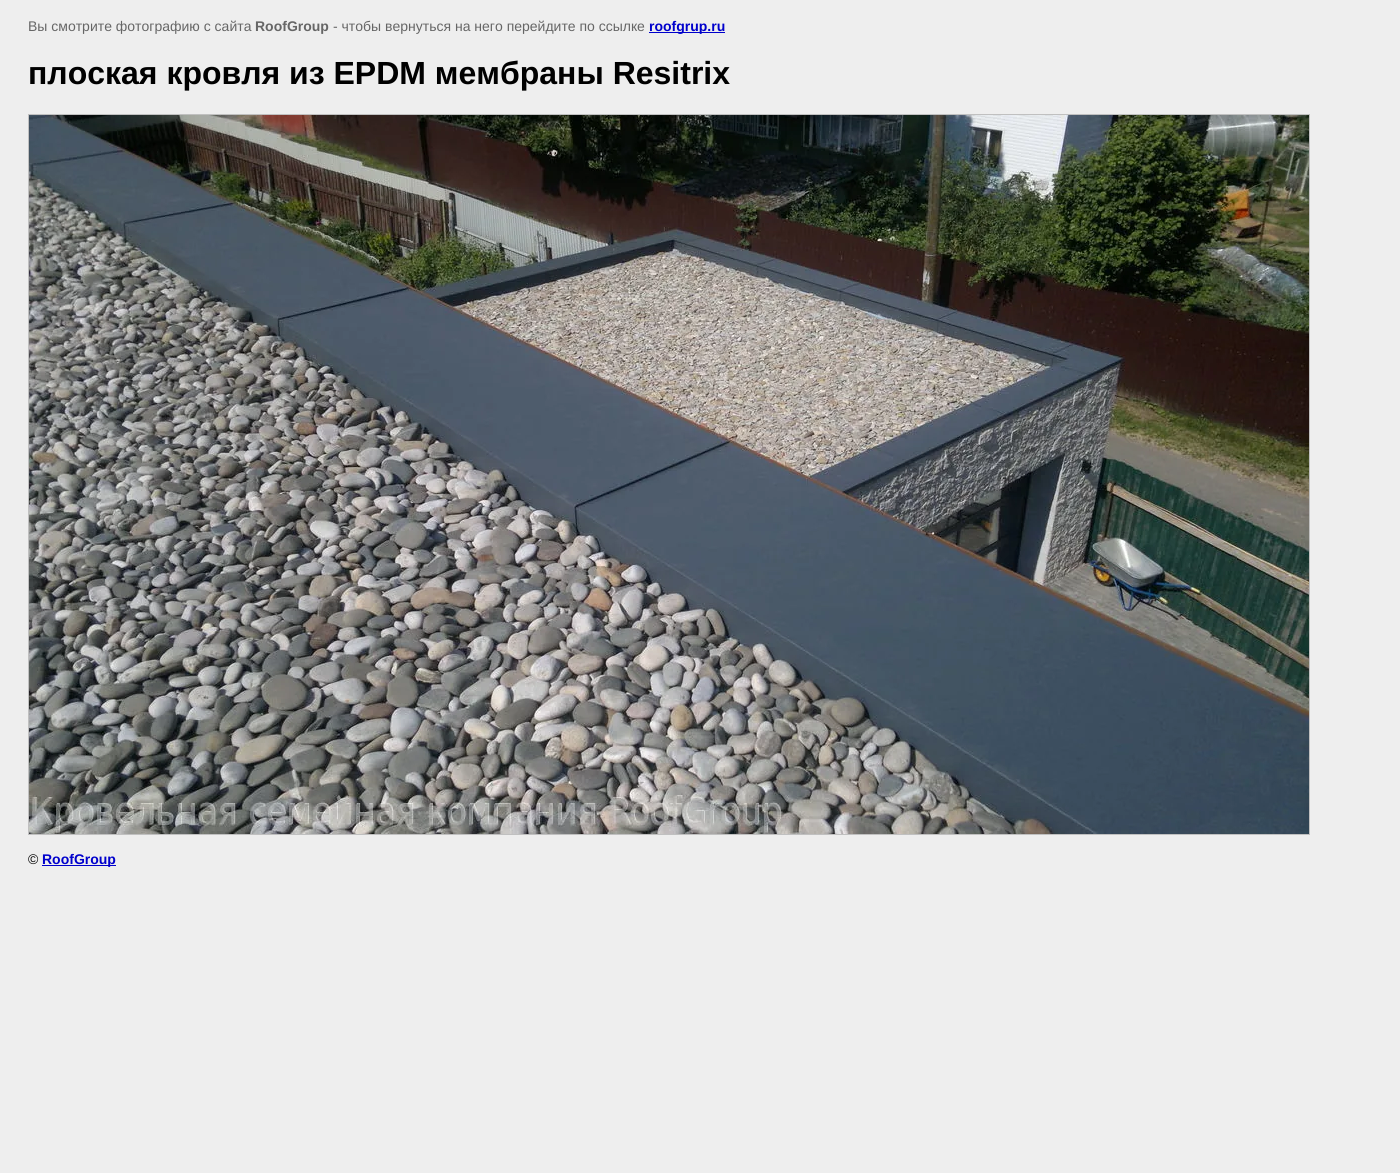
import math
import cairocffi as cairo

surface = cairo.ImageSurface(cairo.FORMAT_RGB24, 1400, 1173)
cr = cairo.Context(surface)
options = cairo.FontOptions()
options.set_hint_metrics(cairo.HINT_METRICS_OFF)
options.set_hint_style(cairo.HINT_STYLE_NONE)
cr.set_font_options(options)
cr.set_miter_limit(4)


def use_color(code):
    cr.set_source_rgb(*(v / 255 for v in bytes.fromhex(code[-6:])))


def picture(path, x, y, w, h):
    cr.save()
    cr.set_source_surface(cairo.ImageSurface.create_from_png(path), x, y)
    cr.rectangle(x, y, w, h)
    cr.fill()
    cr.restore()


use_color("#eeeeee")
cr.paint()
cr.select_font_face("Liberation Sans")
cr.set_font_size(14)
use_color("#666666")
cr.move_to(28, 31)
cr.show_text("Вы смотрите фотографию с сайта")
cr.select_font_face("Liberation Sans", cairo.FONT_SLANT_NORMAL, cairo.FONT_WEIGHT_BOLD)
cr.move_to(255, 31)
cr.show_text("RoofGroup")
cr.select_font_face("Liberation Sans")
cr.move_to(333, 31)
cr.show_text("- чтобы вернуться на него перейдите по ссылке")
use_color("#0000cc")
cr.rectangle(649, 32, 76, 1)
cr.fill()
cr.select_font_face("Liberation Sans", cairo.FONT_SLANT_NORMAL, cairo.FONT_WEIGHT_BOLD)
cr.move_to(649, 31)
cr.show_text("roofgrup.ru")
cr.set_font_size(32)
use_color("#000000")
cr.move_to(28, 84)
cr.show_text("плоская кровля из EPDM мембраны Resitrix")
cr.rectangle(28.5, 114.5, 1281, 720)
use_color("#c0c0c0")
cr.set_line_width(1)
cr.stroke()
picture("img1.png", 29, 115, 1280, 719)
cr.select_font_face("Liberation Sans")
cr.set_font_size(14)
use_color("#000000")
cr.move_to(28, 864)
cr.show_text("©")
use_color("#0000cc")
cr.rectangle(42, 865, 74, 1)
cr.fill()
cr.select_font_face("Liberation Sans", cairo.FONT_SLANT_NORMAL, cairo.FONT_WEIGHT_BOLD)
cr.move_to(42, 864)
cr.show_text("RoofGroup")
surface.write_to_png("result.png")
